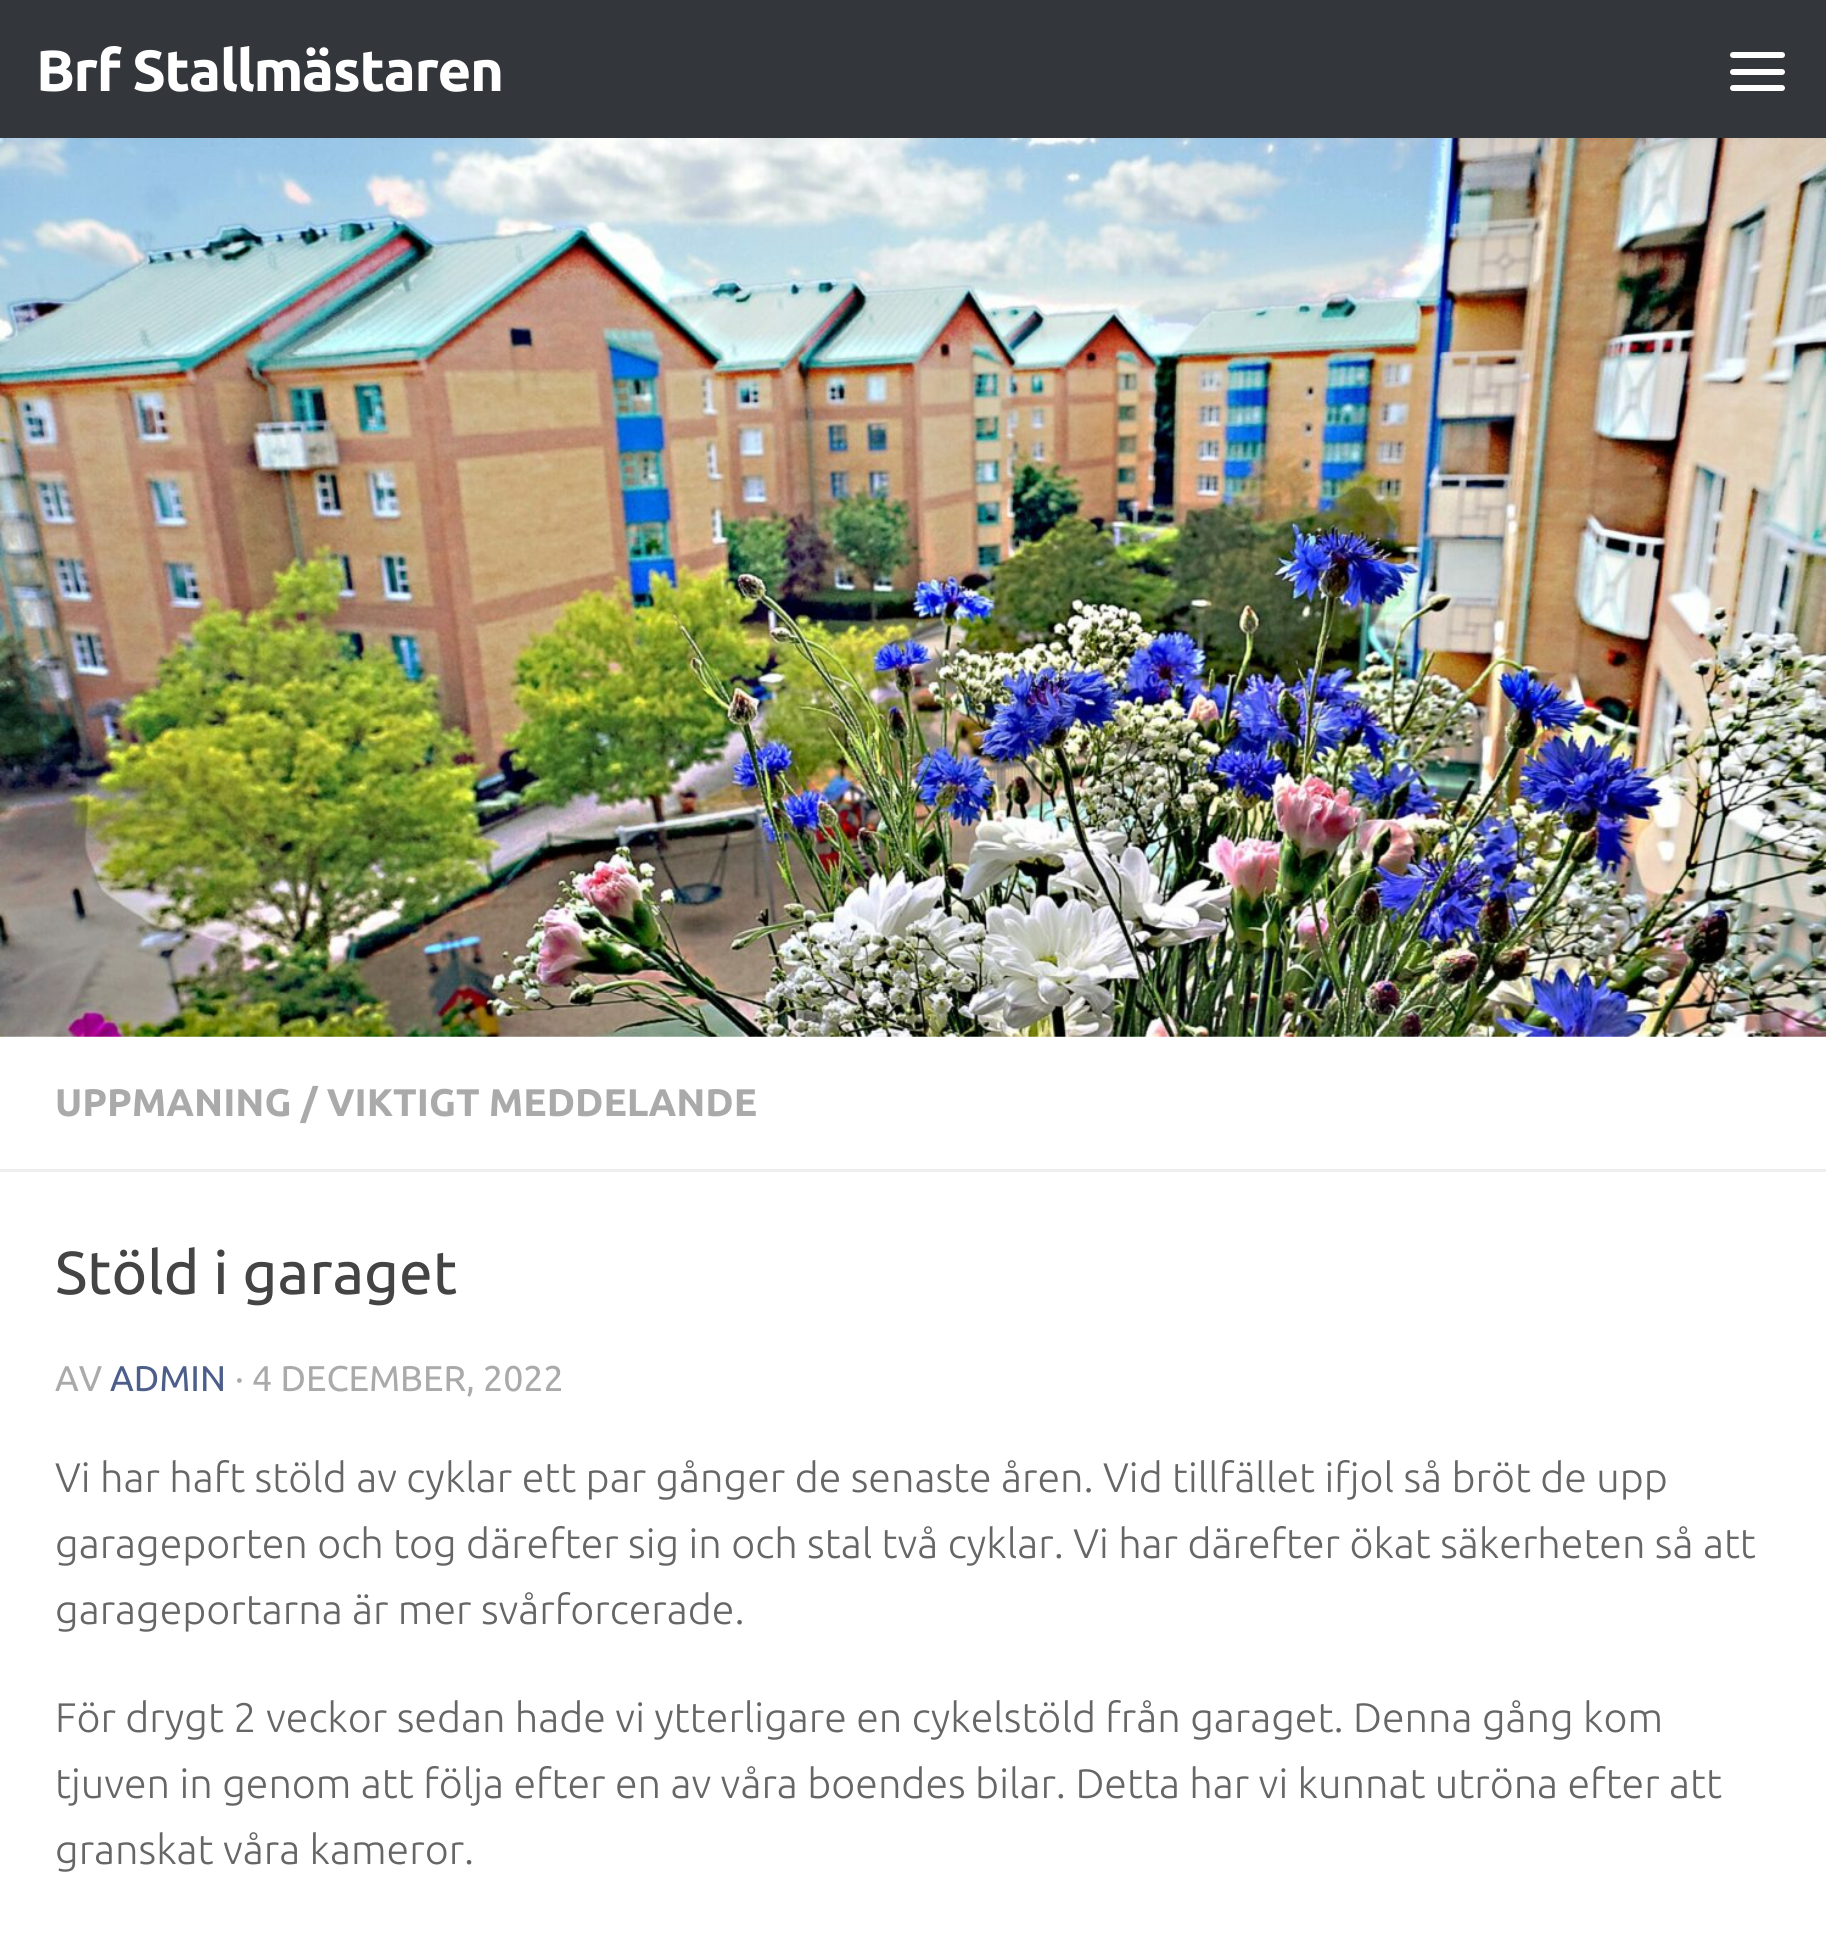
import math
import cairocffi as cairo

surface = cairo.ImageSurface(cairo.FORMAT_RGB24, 1826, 1947)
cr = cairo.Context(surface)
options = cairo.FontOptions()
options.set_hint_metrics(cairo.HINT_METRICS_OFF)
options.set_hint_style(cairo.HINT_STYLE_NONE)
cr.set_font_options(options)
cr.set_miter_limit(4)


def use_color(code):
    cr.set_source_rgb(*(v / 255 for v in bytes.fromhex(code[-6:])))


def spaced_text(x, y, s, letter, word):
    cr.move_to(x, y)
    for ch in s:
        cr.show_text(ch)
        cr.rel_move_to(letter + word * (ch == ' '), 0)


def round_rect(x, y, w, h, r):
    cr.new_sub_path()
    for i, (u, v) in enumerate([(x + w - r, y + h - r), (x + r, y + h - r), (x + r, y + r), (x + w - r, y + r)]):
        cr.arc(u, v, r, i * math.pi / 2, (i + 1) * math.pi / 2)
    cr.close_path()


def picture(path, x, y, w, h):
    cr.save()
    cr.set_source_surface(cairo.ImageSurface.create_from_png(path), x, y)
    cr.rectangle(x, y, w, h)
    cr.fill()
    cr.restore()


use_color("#ffffff")
cr.paint()
use_color("#33363b")
cr.rectangle(0, 0, 1826, 138)
cr.fill()
cr.select_font_face("Ubuntu", cairo.FONT_SLANT_NORMAL, cairo.FONT_WEIGHT_BOLD)
cr.set_font_size(58)
use_color("#ffffff")
spaced_text(36, 91, "Brf Stallmästaren", -1.4, 0)
round_rect(1730, 52, 55, 6, 3)
cr.fill()
round_rect(1730, 69, 55, 6, 3)
cr.fill()
round_rect(1730, 85, 55, 6, 3)
cr.fill()
picture("img1.png", 0, 138, 1826, 899)
use_color("#eeeeee")
cr.rectangle(0, 1169, 1826, 3)
cr.fill()
cr.set_font_size(38.5)
use_color("#aaaaaa")
cr.move_to(55, 1116)
cr.show_text("UPPMANING / VIKTIGT MEDDELANDE")
cr.select_font_face("Ubuntu")
cr.set_font_size(60.5)
use_color("#444444")
cr.move_to(55, 1294)
cr.show_text("Stöld i garaget")
cr.set_font_size(35.75)
use_color("#aaaaaa")
cr.move_to(55, 1391)
cr.show_text("AV")
use_color("#4c5e89")
cr.move_to(110, 1391)
cr.show_text("ADMIN")
use_color("#aaaaaa")
cr.move_to(235, 1391)
cr.show_text("· 4 DECEMBER, 2022")
cr.select_font_face("Ubuntu Light")
cr.set_font_size(41.25)
use_color("#666666")
cr.move_to(55, 1492)
cr.show_text("Vi har haft stöld av cyklar ett par gånger de senaste åren. Vid tillfället ifjol så bröt de upp")
cr.move_to(55, 1558)
cr.show_text("garageporten och tog därefter sig in och stal två cyklar. Vi har därefter ökat säkerheten så att")
cr.move_to(55, 1624)
cr.show_text("garageportarna är mer svårforcerade.")
cr.move_to(55, 1732)
cr.show_text("För drygt 2 veckor sedan hade vi ytterligare en cykelstöld från garaget. Denna gång kom")
cr.move_to(55, 1798)
cr.show_text("tjuven in genom att följa efter en av våra boendes bilar. Detta har vi kunnat utröna efter att")
cr.move_to(55, 1864)
cr.show_text("granskat våra kameror.")
surface.write_to_png("result.png")
